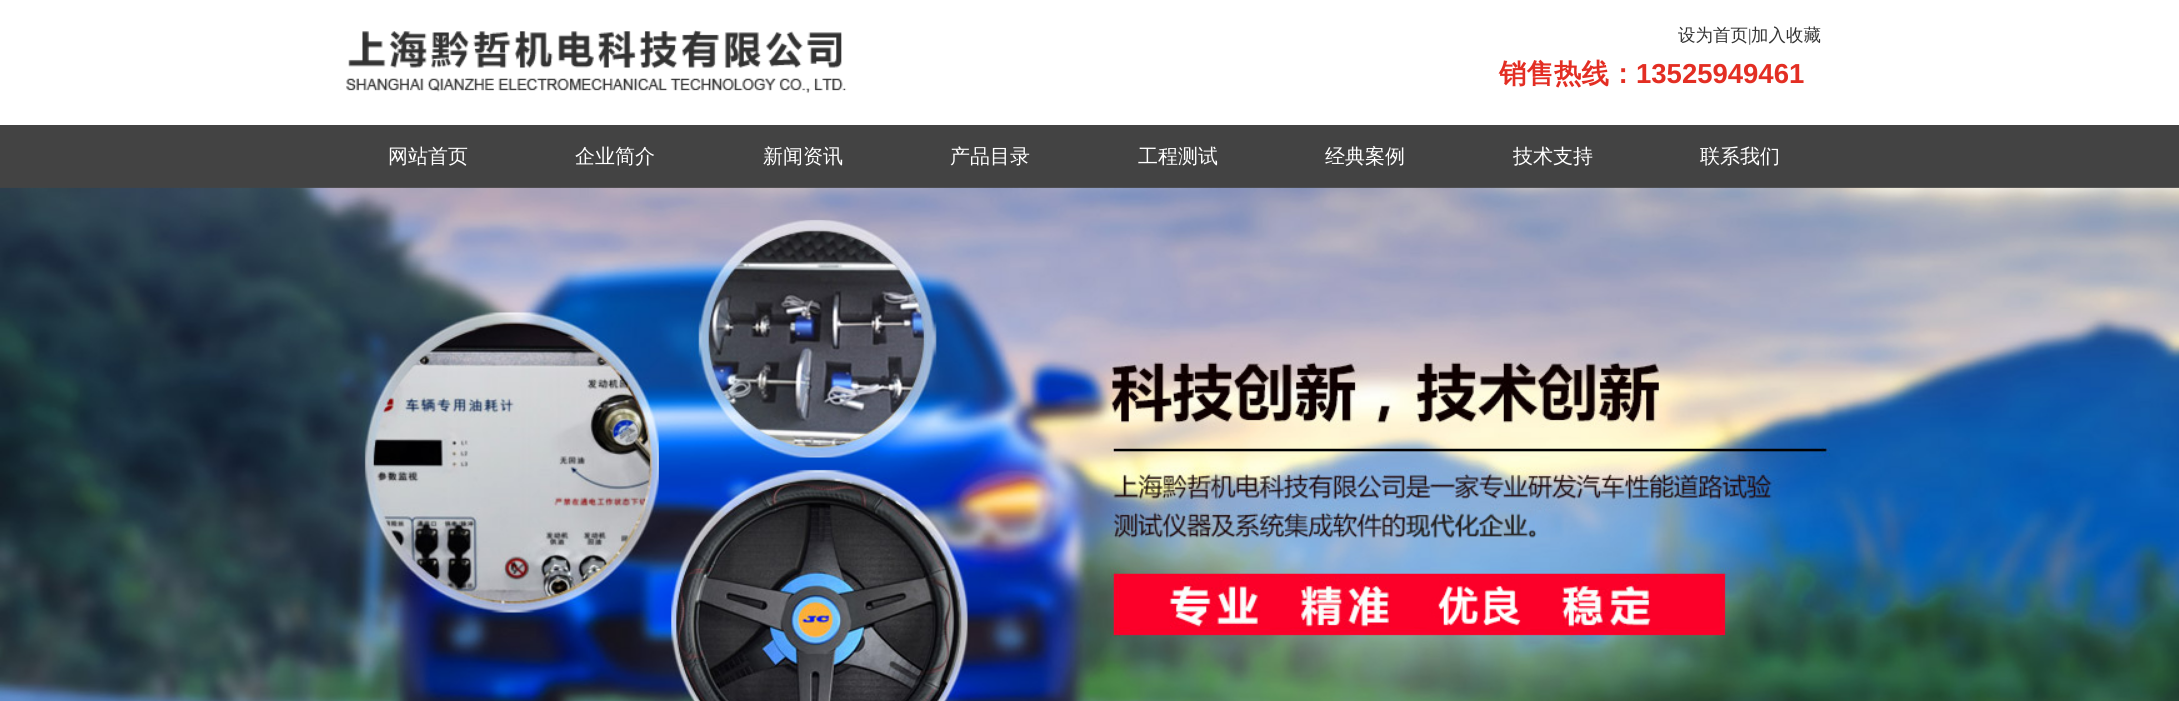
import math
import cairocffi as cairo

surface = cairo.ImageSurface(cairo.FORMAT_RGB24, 2179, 701)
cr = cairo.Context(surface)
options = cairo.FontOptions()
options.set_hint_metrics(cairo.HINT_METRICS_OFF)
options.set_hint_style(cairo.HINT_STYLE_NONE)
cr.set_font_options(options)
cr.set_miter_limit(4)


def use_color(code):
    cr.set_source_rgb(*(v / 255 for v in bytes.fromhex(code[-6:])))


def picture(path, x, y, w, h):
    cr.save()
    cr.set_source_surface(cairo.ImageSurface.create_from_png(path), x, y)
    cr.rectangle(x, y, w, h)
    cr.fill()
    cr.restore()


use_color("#ffffff")
cr.paint()
picture("img1.png", 346, 30, 501, 63)
cr.select_font_face("WenQuanYi Zen Hei Medium")
cr.set_font_size(17.5)
use_color("#333333")
cr.move_to(1678, 41)
cr.show_text("设为首页")
cr.select_font_face("Liberation Serif")
cr.move_to(1748, 41)
cr.show_text("|")
cr.select_font_face("WenQuanYi Zen Hei Medium")
cr.move_to(1751, 41)
cr.show_text("加入收藏")
cr.select_font_face("WenQuanYi Zen Hei", cairo.FONT_SLANT_NORMAL, cairo.FONT_WEIGHT_BOLD)
cr.set_font_size(27.5)
use_color("#e32e23")
cr.move_to(1499, 83)
cr.show_text("销售热线：")
cr.select_font_face("Liberation Sans", cairo.FONT_SLANT_NORMAL, cairo.FONT_WEIGHT_BOLD)
cr.move_to(1636, 83)
cr.show_text("13525949461")
use_color("#434343")
cr.rectangle(0, 125, 2179, 63)
cr.fill()
cr.select_font_face("WenQuanYi Zen Hei Medium")
cr.set_font_size(20)
use_color("#ffffff")
cr.move_to(388, 163)
cr.show_text("网站首页")
cr.move_to(575, 163)
cr.show_text("企业简介")
cr.move_to(763, 163)
cr.show_text("新闻资讯")
cr.move_to(950, 163)
cr.show_text("产品目录")
cr.move_to(1138, 163)
cr.show_text("工程测试")
cr.move_to(1325, 163)
cr.show_text("经典案例")
cr.move_to(1513, 163)
cr.show_text("技术支持")
cr.move_to(1700, 163)
cr.show_text("联系我们")
picture("img2.png", 0, 187, 2179, 514)
surface.write_to_png("result.png")
